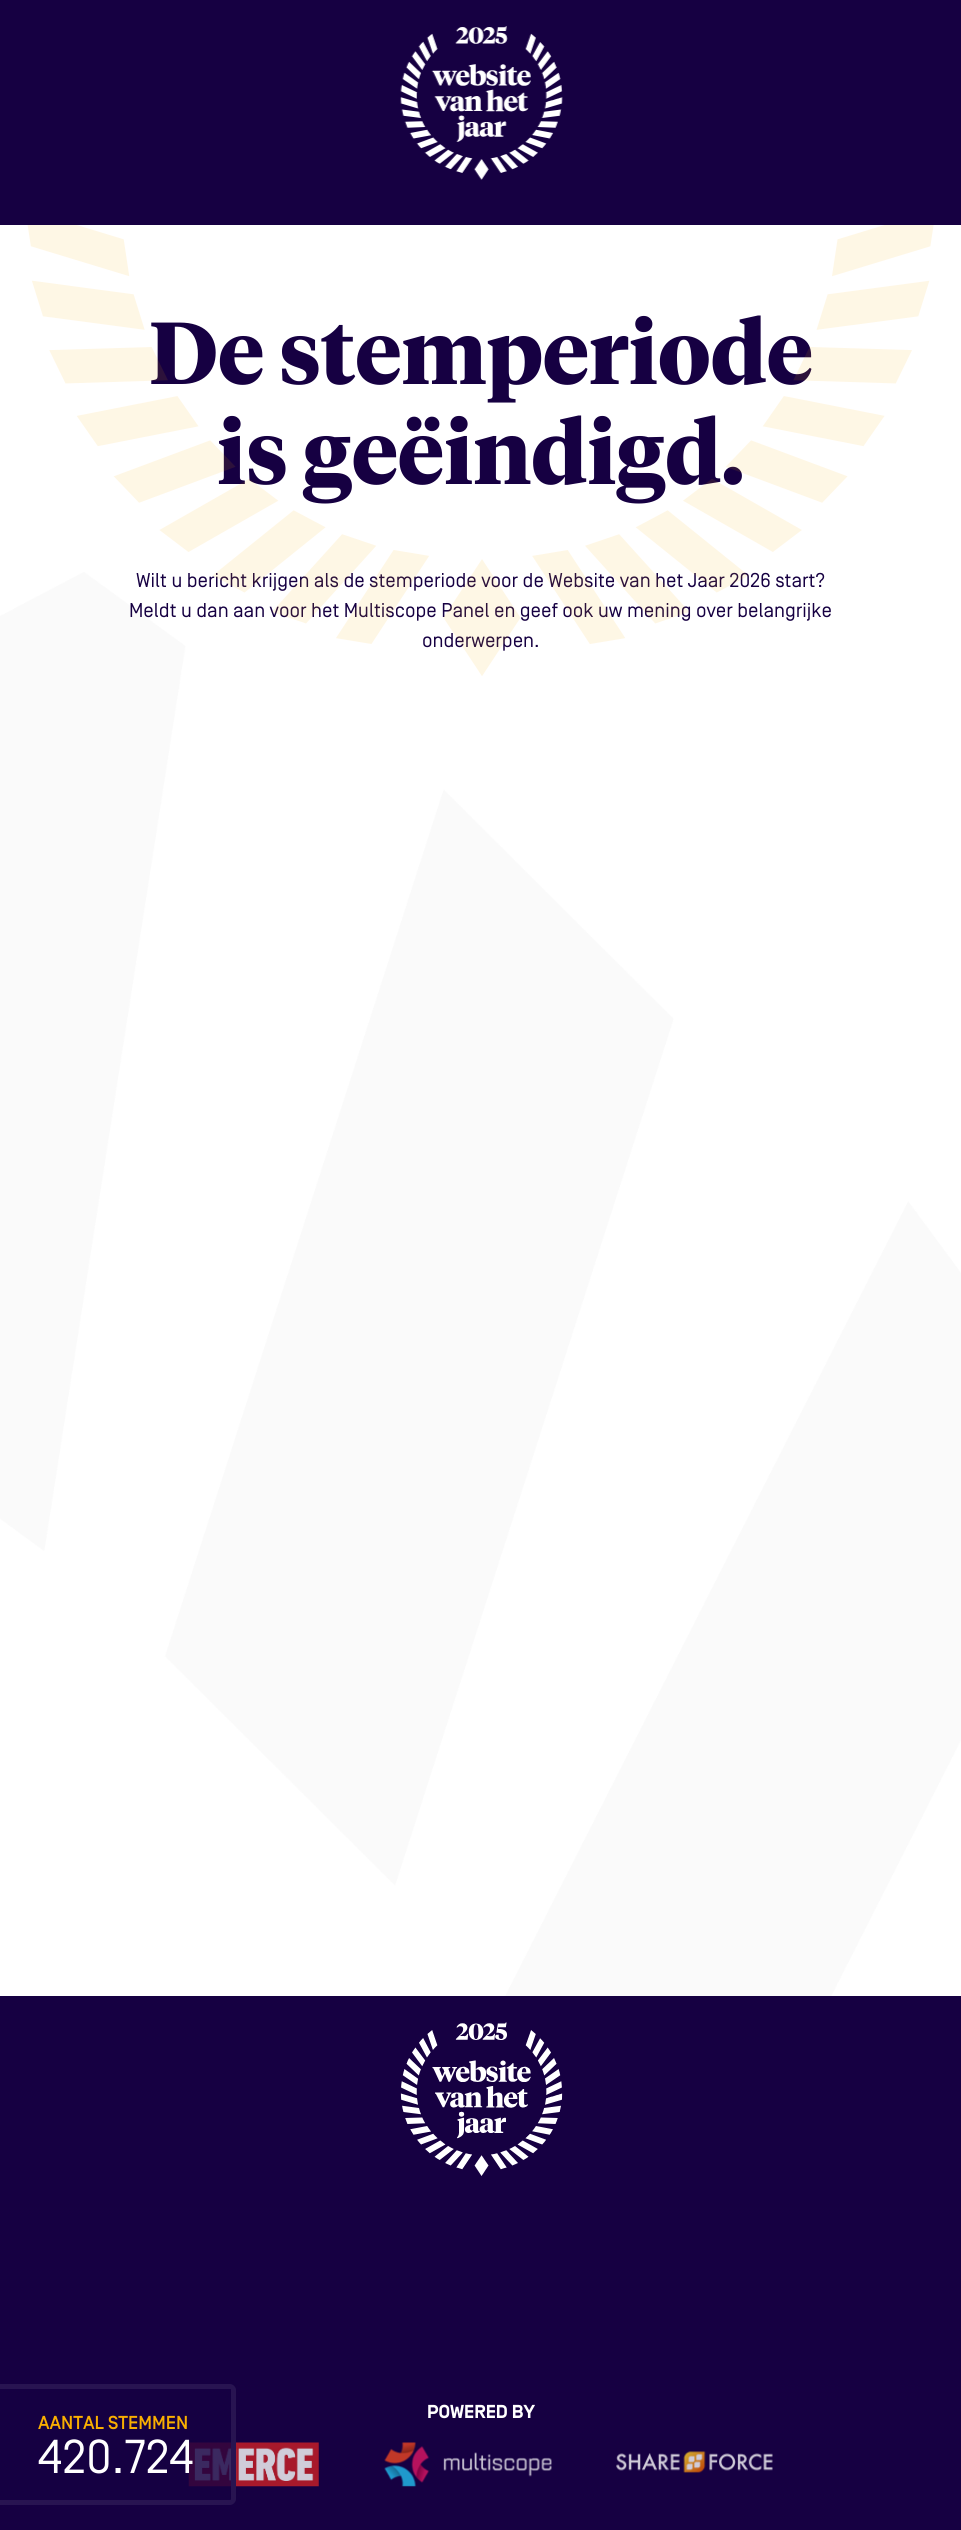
import math
import cairocffi as cairo

surface = cairo.ImageSurface(cairo.FORMAT_RGB24, 961, 2530)
cr = cairo.Context(surface)
options = cairo.FontOptions()
options.set_hint_metrics(cairo.HINT_METRICS_OFF)
options.set_hint_style(cairo.HINT_STYLE_NONE)
cr.set_font_options(options)
cr.set_miter_limit(4)


def use_color(code):
    cr.set_source_rgb(*(v / 255 for v in bytes.fromhex(code[-6:])))


def picture(path, x, y, w, h):
    cr.save()
    cr.set_source_surface(cairo.ImageSurface.create_from_png(path), x, y)
    cr.rectangle(x, y, w, h)
    cr.fill()
    cr.restore()


use_color("#ffffff")
cr.paint()
use_color("#160042")
cr.rectangle(0, 0, 961, 225)
cr.fill()
picture("img1.png", 400, 26, 163, 154)
picture("img2.png", 0, 572, 961, 1424)
cr.select_font_face("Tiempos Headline", cairo.FONT_SLANT_NORMAL, cairo.FONT_WEIGHT_BOLD)
cr.set_font_size(87.5)
cr.move_to(149, 384)
cr.show_text("De stemperiode")
cr.move_to(217, 484)
cr.show_text("is geëindigd.")
cr.select_font_face("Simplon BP")
cr.set_font_size(20)
cr.move_to(136, 587)
cr.show_text("Wilt u bericht krijgen als de stemperiode voor de Website van het Jaar 2026 start?")
cr.move_to(129, 617)
cr.show_text("Meldt u dan aan voor het Multiscope Panel en geef ook uw mening over belangrijke")
cr.move_to(422, 647)
cr.show_text("onderwerpen.")
picture("img3.png", 27, 225, 907, 451)
cr.rectangle(0, 1996, 961, 534)
cr.fill()
picture("img4.png", 400, 2022, 163, 154)
cr.select_font_face("Simplon BP", cairo.FONT_SLANT_NORMAL, cairo.FONT_WEIGHT_BOLD)
cr.set_font_size(18.75)
use_color("#ffffff")
cr.move_to(427, 2418)
cr.show_text("POWERED BY")
picture("img5.png", 188, 2442, 131, 45)
picture("img6.png", 384, 2442, 168, 45)
picture("img7.png", 616, 2451, 157, 22)
cr.set_source_rgba(0.086, 0, 0.259, 0.8)
cr.new_path()
cr.move_to(0, 2384)
cr.line_to(230, 2384)
cr.curve_to(233.5, 2384, 236, 2386.5, 236, 2390)
cr.line_to(236, 2499)
cr.curve_to(236, 2502.5, 233.5, 2505, 230, 2505)
cr.line_to(0, 2505)
cr.close_path()
cr.fill()
use_color("#281451")
cr.set_fill_rule(cairo.FILL_RULE_EVEN_ODD)
cr.new_path()
cr.move_to(0, 2384)
cr.line_to(230, 2384)
cr.curve_to(233, 2384, 236, 2387, 236, 2390)
cr.line_to(236, 2499)
cr.curve_to(236, 2502, 233, 2505, 230, 2505)
cr.line_to(0, 2505)
cr.close_path()
cr.move_to(0, 2389)
cr.line_to(230, 2389)
cr.curve_to(231, 2389, 231, 2389, 231, 2390)
cr.line_to(231, 2499)
cr.curve_to(231, 2499, 231, 2500, 230, 2500)
cr.line_to(0, 2500)
cr.close_path()
cr.fill()
cr.select_font_face("Simplon BP Medium")
use_color("#f9af00")
cr.move_to(38, 2429)
cr.show_text("AANTAL STEMMEN")
cr.select_font_face("Simplon BP")
cr.set_font_size(47.5)
use_color("#ffffff")
cr.move_to(38, 2473)
cr.show_text("420.724")
surface.write_to_png("result.png")
